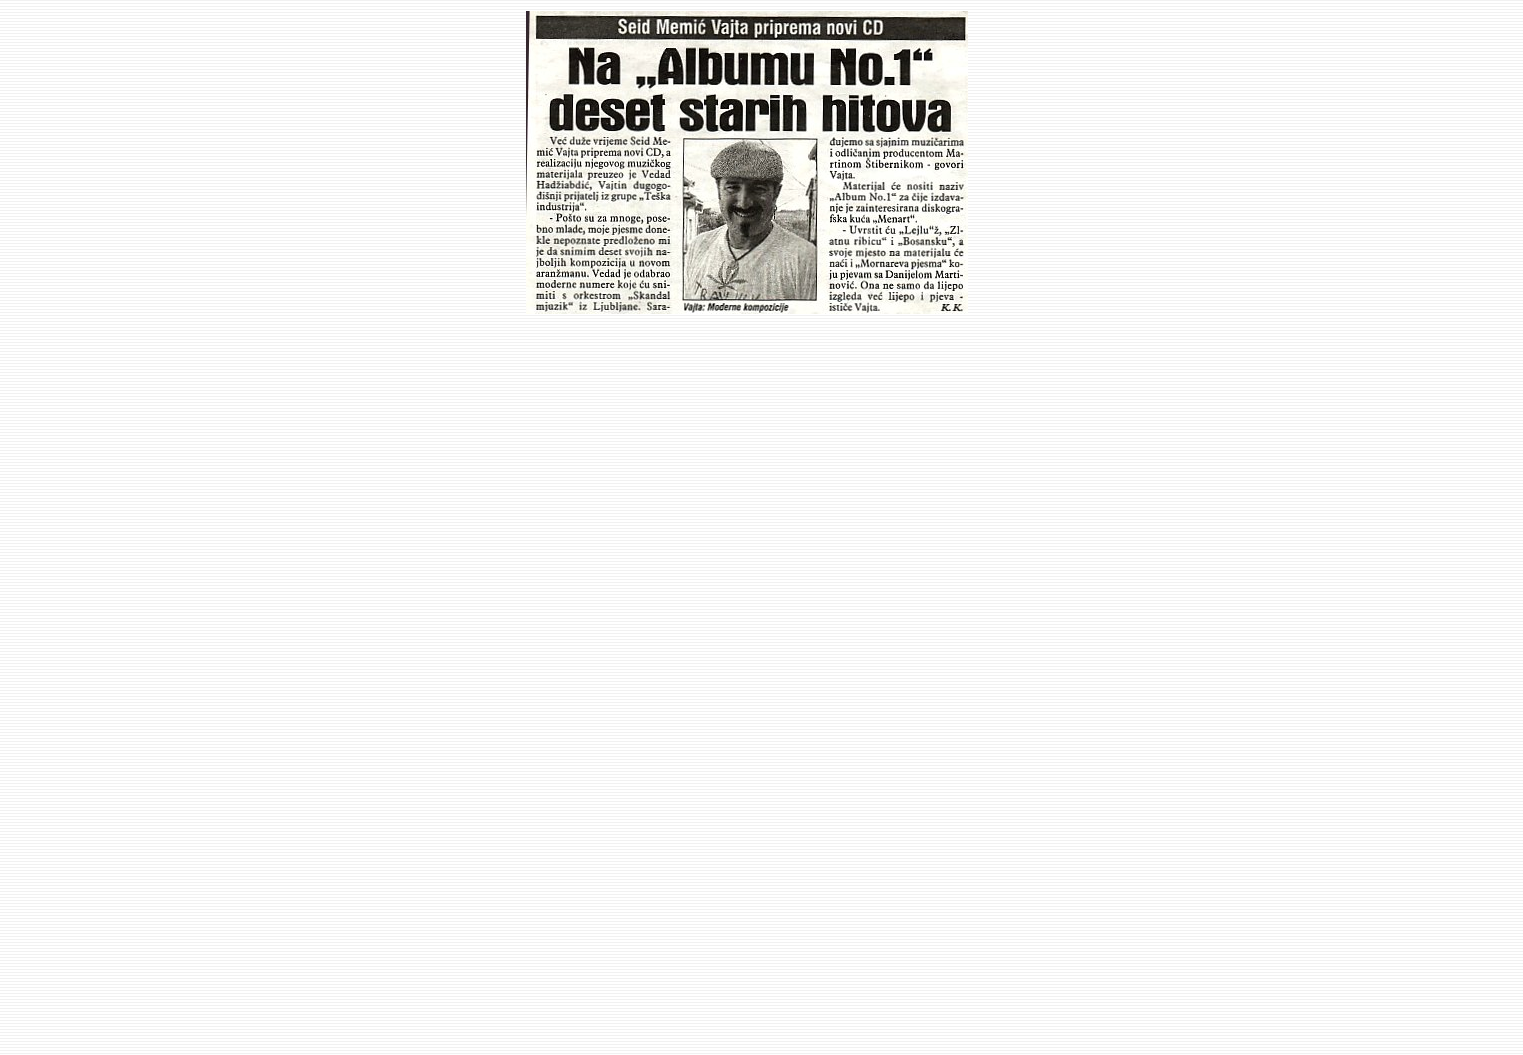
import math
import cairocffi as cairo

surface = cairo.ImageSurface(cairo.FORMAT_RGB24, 1523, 1055)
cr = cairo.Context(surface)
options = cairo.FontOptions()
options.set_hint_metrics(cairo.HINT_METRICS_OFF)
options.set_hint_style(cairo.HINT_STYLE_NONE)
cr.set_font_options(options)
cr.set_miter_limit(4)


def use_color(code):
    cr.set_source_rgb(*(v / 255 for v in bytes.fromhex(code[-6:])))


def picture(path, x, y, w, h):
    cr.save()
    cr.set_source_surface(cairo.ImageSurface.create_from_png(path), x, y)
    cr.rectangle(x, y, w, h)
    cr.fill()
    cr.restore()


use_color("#ffffff")
cr.paint()
picture("img1.png", 0, 0, 1523, 1054)
picture("img2.png", 526, 11, 442, 303)
surface.write_to_png("result.png")
